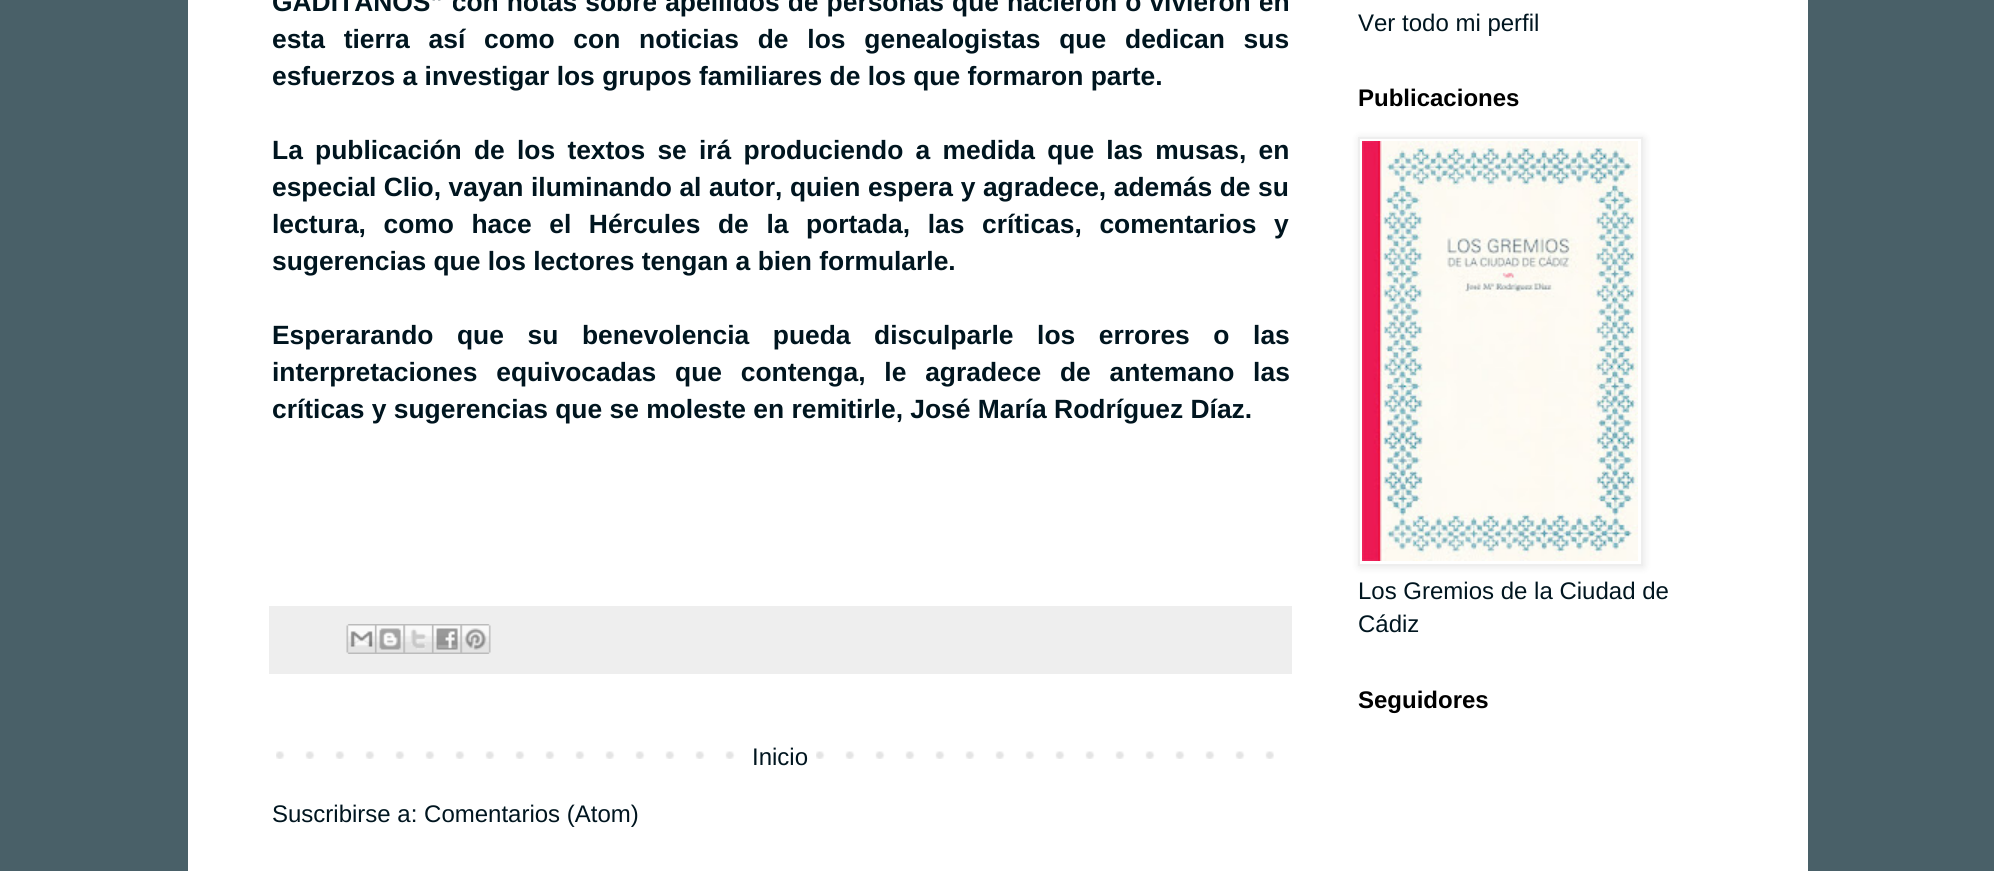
import math
import cairocffi as cairo

surface = cairo.ImageSurface(cairo.FORMAT_RGB24, 1994, 871)
cr = cairo.Context(surface)
options = cairo.FontOptions()
options.set_hint_metrics(cairo.HINT_METRICS_OFF)
options.set_hint_style(cairo.HINT_STYLE_NONE)
cr.set_font_options(options)
cr.set_miter_limit(4)


def use_color(code):
    cr.set_source_rgb(*(v / 255 for v in bytes.fromhex(code[-6:])))


def spaced_text(x, y, s, letter, word):
    cr.move_to(x, y)
    for ch in s:
        cr.show_text(ch)
        cr.rel_move_to(letter + word * (ch == ' '), 0)


def round_rect(x, y, w, h, r):
    cr.new_sub_path()
    for i, (u, v) in enumerate([(x + w - r, y + h - r), (x + r, y + h - r), (x + r, y + r), (x + w - r, y + r)]):
        cr.arc(u, v, r, i * math.pi / 2, (i + 1) * math.pi / 2)
    cr.close_path()


def shadow(x, y, w, h, r, blur, alpha):
    cr.push_group_with_content(cairo.CONTENT_ALPHA)
    cr.set_operator(cairo.OPERATOR_SOURCE)
    for i in range(15, -16, -2):
        e = blur * i / 6
        if min(w, h) + 2 * e > 0:
            cr.set_source_rgba(0, 0, 0, alpha * math.erfc((i - 1) / 8.5) / 2)
            round_rect(x - e, y - e, w + 2 * e, h + 2 * e, max(0, min(r + e + blur * .6, min(w, h) / 2 + e)))
            cr.fill()
    cr.mask(cr.pop_group())


def picture(path, x, y, w, h):
    cr.save()
    cr.set_source_surface(cairo.ImageSurface.create_from_png(path), x, y)
    cr.rectangle(x, y, w, h)
    cr.fill()
    cr.restore()


use_color("#496068")
cr.paint()
use_color("#ffffff")
cr.rectangle(188, 0, 1620, 871)
cr.fill()
cr.select_font_face("Liberation Sans", cairo.FONT_SLANT_NORMAL, cairo.FONT_WEIGHT_BOLD)
cr.set_font_size(26.4)
use_color("#00151f")
spaced_text(272, 11, "GADITANOS” con notas sobre apellidos de personas que nacieron o vivieron en", 0, 0.75)
spaced_text(272, 48, "esta tierra así como con noticias de los genealogistas que dedican sus", 0, 11.5)
cr.move_to(272, 85)
cr.show_text("esfuerzos a investigar los grupos familiares de los que formaron parte.")
spaced_text(272, 159, "La publicación de los textos se irá produciendo a medida que las musas, en", 0, 4.9)
spaced_text(272, 196, "especial Clio, vayan iluminando al autor, quien espera y agradece, además de su", 0, 0.25)
spaced_text(272, 233, "lectura, como hace el Hércules de la portada, las críticas, comentarios y", 0, 10.25)
cr.move_to(272, 270)
cr.show_text("sugerencias que los lectores tengan a bien formularle.")
spaced_text(272, 344, "Esperarando que su benevolencia pueda disculparle los errores o las", 0, 16.25)
spaced_text(272, 381, "interpretaciones equivocadas que contenga, le agradece de antemano las", 0, 11.5)
cr.move_to(272, 418)
cr.show_text("críticas y sugerencias que se moleste en remitirle, José María Rodríguez Díaz.")
use_color("#eeeeee")
cr.rectangle(269, 606, 1023, 68)
cr.fill()
picture("img1.png", 346, 624, 29, 30)
picture("img2.png", 375, 624, 29, 30)
picture("img3.png", 403, 624, 29, 30)
picture("img4.png", 432, 624, 29, 30)
picture("img5.png", 460, 624, 31, 30)
picture("img6.png", 276, 751, 998, 8)
use_color("#ffffff")
cr.rectangle(755, 751, 61, 8)
cr.fill()
cr.select_font_face("Liberation Sans")
cr.set_font_size(24)
use_color("#00151f")
cr.move_to(752, 765)
cr.show_text("Inicio")
cr.move_to(272, 822)
cr.show_text("Suscribirse a: Comentarios (Atom)")
cr.move_to(1358, 31)
cr.show_text("Ver todo mi perfil")
cr.select_font_face("Liberation Sans", cairo.FONT_SLANT_NORMAL, cairo.FONT_WEIGHT_BOLD)
use_color("#000000")
cr.move_to(1358, 106)
cr.show_text("Publicaciones")
use_color("#000000")
shadow(1359, 138, 285, 429, 0, 4, 0.1)
use_color("#ffffff")
cr.rectangle(1359, 138, 283, 427)
cr.fill_preserve()
use_color("#eeeeee")
cr.stroke()
picture("img7.png", 1362, 141, 276, 420)
cr.select_font_face("Liberation Sans")
use_color("#00151f")
cr.move_to(1358, 599)
cr.show_text("Los Gremios de la Ciudad de")
cr.move_to(1358, 632)
cr.show_text("Cádiz")
cr.select_font_face("Liberation Sans", cairo.FONT_SLANT_NORMAL, cairo.FONT_WEIGHT_BOLD)
use_color("#000000")
cr.move_to(1358, 708)
cr.show_text("Seguidores")
surface.write_to_png("result.png")
